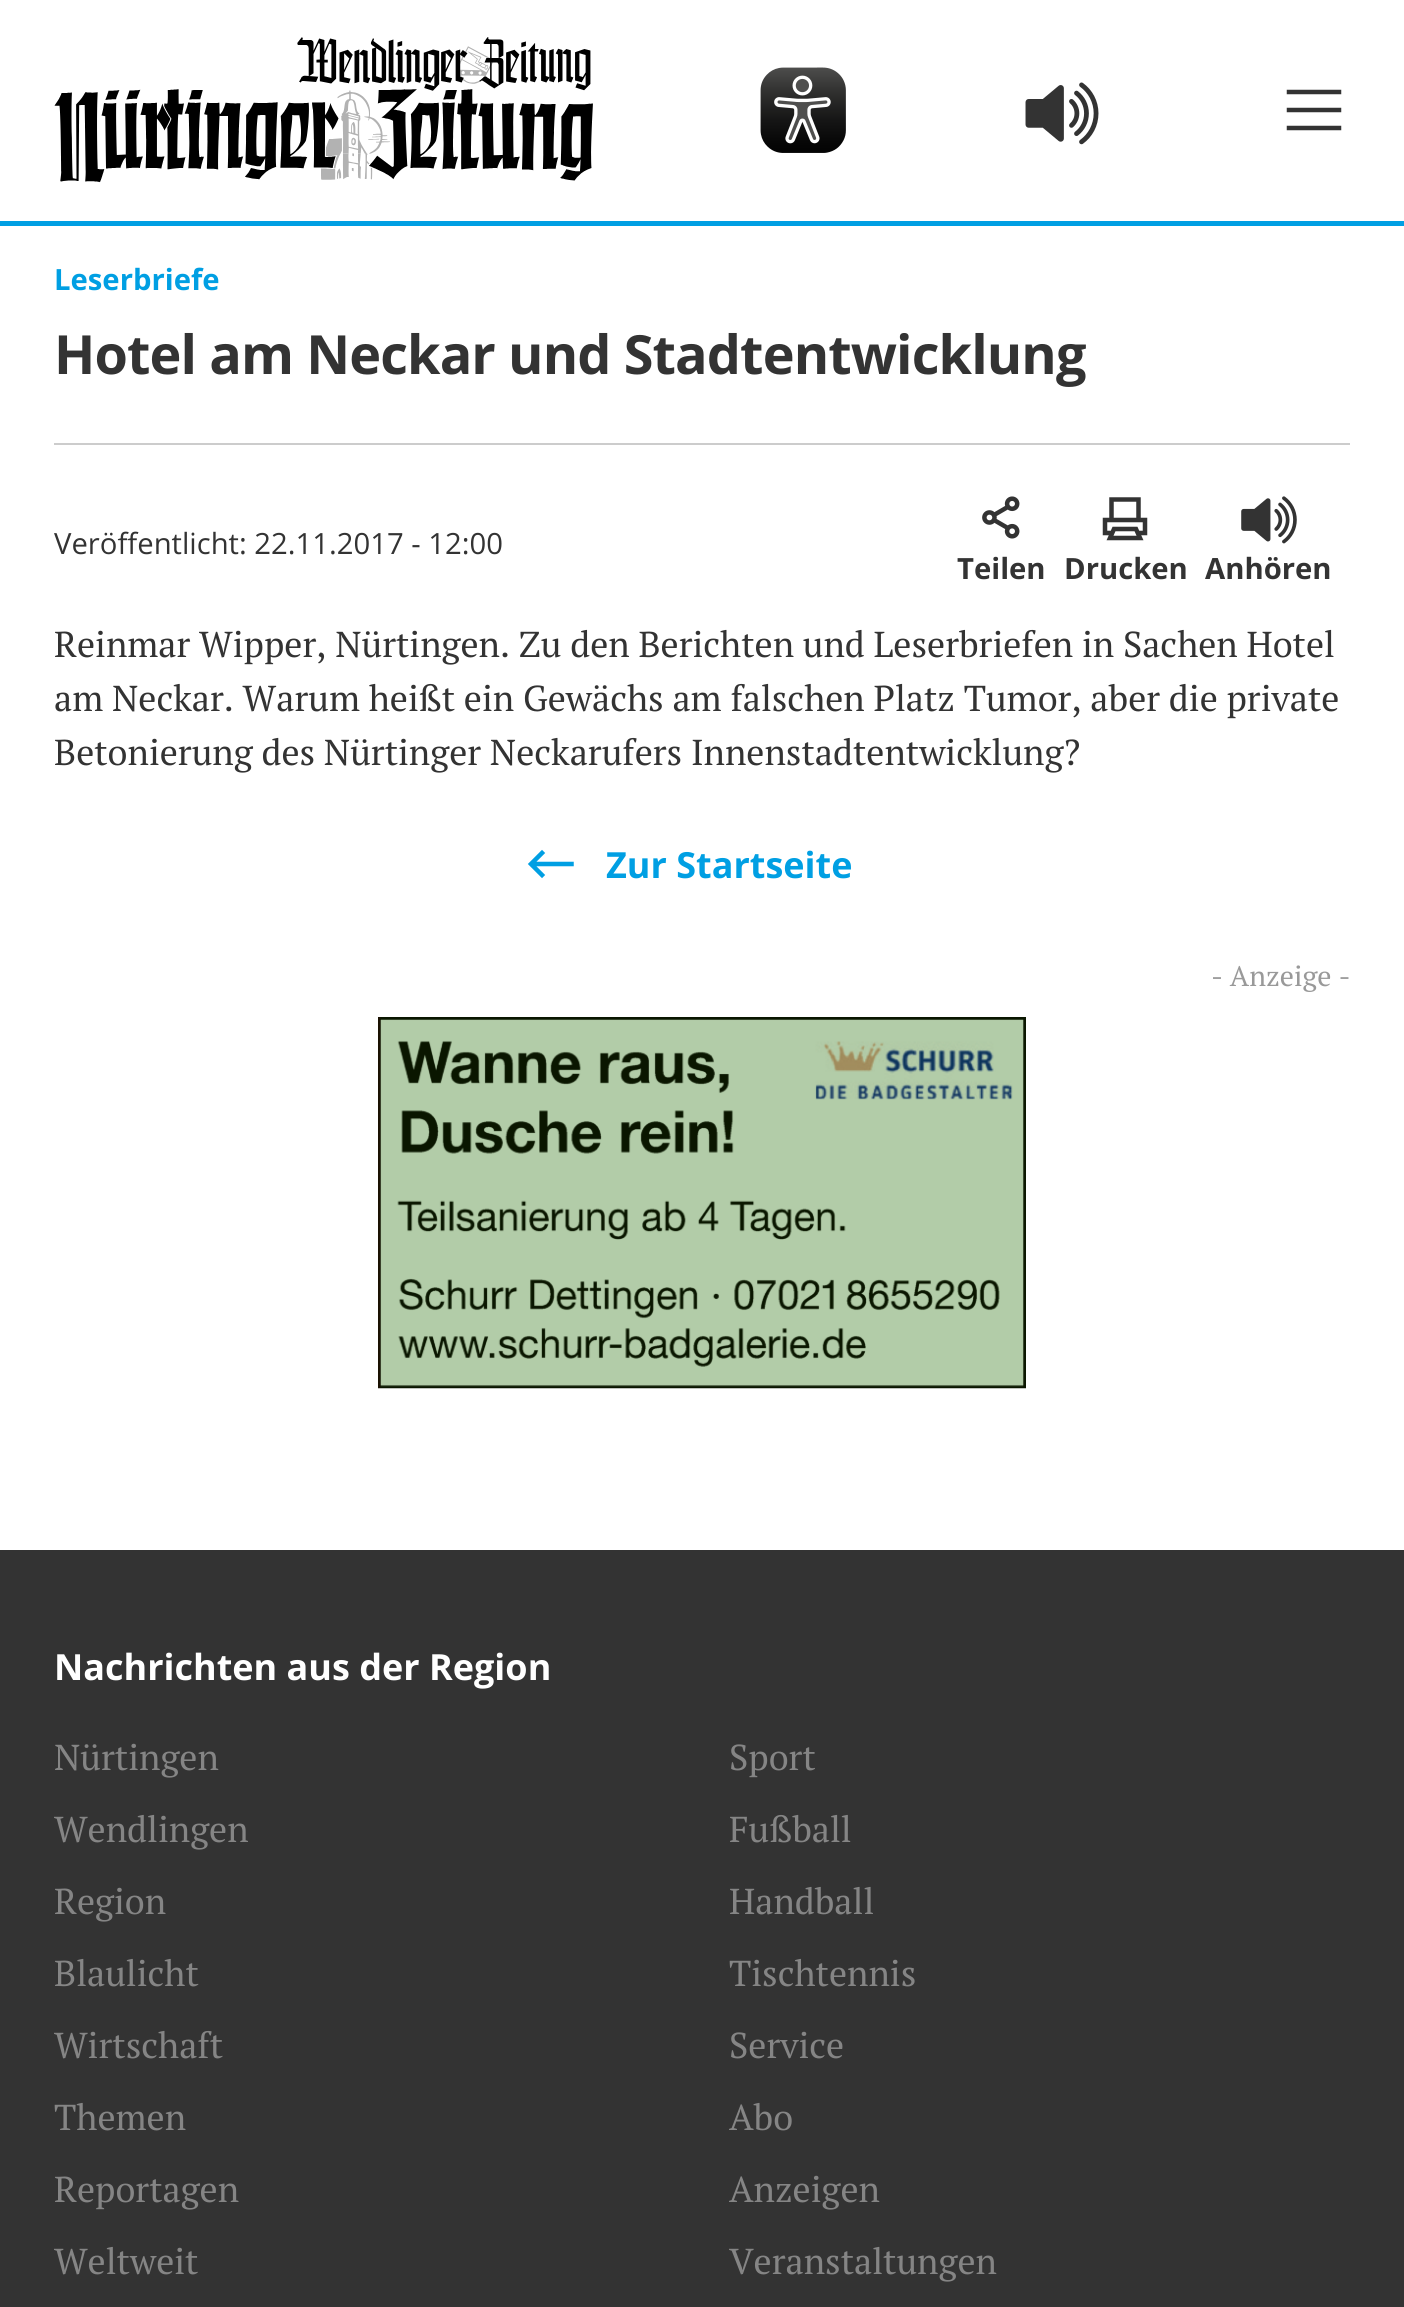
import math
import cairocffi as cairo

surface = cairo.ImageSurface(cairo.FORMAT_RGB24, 1404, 2307)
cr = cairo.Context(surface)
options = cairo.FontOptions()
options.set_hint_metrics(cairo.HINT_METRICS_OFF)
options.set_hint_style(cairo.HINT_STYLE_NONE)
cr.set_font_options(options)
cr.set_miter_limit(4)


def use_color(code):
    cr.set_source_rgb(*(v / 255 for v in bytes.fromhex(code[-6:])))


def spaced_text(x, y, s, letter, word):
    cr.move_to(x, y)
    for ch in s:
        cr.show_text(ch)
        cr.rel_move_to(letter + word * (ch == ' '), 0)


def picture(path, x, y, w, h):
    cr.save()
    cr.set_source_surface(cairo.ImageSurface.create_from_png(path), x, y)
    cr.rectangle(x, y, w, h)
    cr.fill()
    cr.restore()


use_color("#ffffff")
cr.paint()
use_color("#009fe3")
cr.rectangle(0, 221, 1404, 5)
cr.fill()
picture("img1.png", 54, 37, 539, 146)
picture("img2.png", 760, 67, 86, 86)
picture("img3.png", 1025, 82, 74, 63)
cr.new_path()
cr.move_to(1289, 92)
cr.line_to(1339, 92)
cr.move_to(1289, 110)
cr.line_to(1339, 110)
cr.move_to(1289, 128)
cr.line_to(1339, 128)
use_color("#333333")
cr.set_line_width(4.5)
cr.set_line_cap(cairo.LINE_CAP_SQUARE)
cr.stroke()
cr.select_font_face("Open Sans", cairo.FONT_SLANT_NORMAL, cairo.FONT_WEIGHT_BOLD)
cr.set_font_size(29.25)
use_color("#009fe3")
cr.move_to(54, 290)
cr.show_text("Leserbriefe")
cr.set_font_size(54)
use_color("#333333")
spaced_text(54, 374, "Hotel am Neckar und Stadtentwicklung", -0.9, 0)
use_color("#cccccc")
cr.rectangle(54, 443, 1296, 2)
cr.fill()
cr.select_font_face("Open Sans")
cr.set_font_size(29.25)
use_color("#333333")
cr.move_to(54, 554)
cr.show_text("Veröffentlicht: 22.11.2017 - 12:00")
picture("img4.png", 982, 496, 38, 43)
cr.select_font_face("Open Sans", cairo.FONT_SLANT_NORMAL, cairo.FONT_WEIGHT_BOLD)
cr.move_to(957, 579)
cr.show_text("Teilen")
cr.new_path()
cr.move_to(1111.5, 499.5)
cr.line_to(1138.5, 499.5)
cr.line_to(1138.5, 520)
cr.line_to(1111.5, 520)
cr.close_path()
cr.move_to(1114, 529)
cr.line_to(1136, 529)
cr.line_to(1140, 538)
cr.line_to(1110, 538)
cr.close_path()
cr.move_to(1110, 533)
cr.line_to(1105, 533)
cr.line_to(1105, 520)
cr.line_to(1145, 520)
cr.line_to(1145, 533)
cr.line_to(1140, 533)
cr.stroke()
cr.move_to(1064, 579)
cr.show_text("Drucken")
picture("img5.png", 1241, 496, 56, 48)
cr.move_to(1205, 579)
cr.show_text("Anhören")
cr.select_font_face("PT Serif")
cr.set_font_size(36)
cr.move_to(54, 657)
cr.show_text("Reinmar Wipper, Nürtingen. Zu den Berichten und Leserbriefen in Sachen Hotel")
cr.move_to(54, 711)
cr.show_text("am Neckar. Warum heißt ein Gewächs am falschen Platz Tumor, aber die private")
cr.move_to(54, 765)
cr.show_text("Betonierung des Nürtinger Neckarufers Innenstadtentwicklung?")
cr.new_path()
cr.move_to(542, 853)
cr.line_to(531, 864)
cr.move_to(542, 875)
cr.line_to(531, 864)
cr.move_to(533, 864)
cr.line_to(571.5, 864)
use_color("#009fe3")
cr.stroke()
cr.select_font_face("Open Sans", cairo.FONT_SLANT_NORMAL, cairo.FONT_WEIGHT_BOLD)
cr.move_to(606, 878)
cr.show_text("Zur Startseite")
cr.select_font_face("PT Serif")
cr.set_font_size(28.25)
use_color("#999999")
cr.move_to(1211, 986)
cr.show_text("- Anzeige -")
picture("img6.png", 378, 1017, 648, 372)
use_color("#333333")
cr.rectangle(0, 1550, 1404, 757)
cr.fill()
cr.select_font_face("Open Sans", cairo.FONT_SLANT_NORMAL, cairo.FONT_WEIGHT_BOLD)
cr.set_font_size(36)
use_color("#ffffff")
cr.move_to(54, 1680)
cr.show_text("Nachrichten aus der Region")
cr.select_font_face("PT Serif")
use_color("#858585")
cr.move_to(54, 1770)
cr.show_text("Nürtingen")
cr.move_to(54, 1842)
cr.show_text("Wendlingen")
cr.move_to(54, 1914)
cr.show_text("Region")
cr.move_to(54, 1986)
cr.show_text("Blaulicht")
cr.move_to(729, 1770)
cr.show_text("Sport")
cr.move_to(729, 1842)
cr.show_text("Fußball")
cr.move_to(729, 1914)
cr.show_text("Handball")
cr.move_to(729, 1986)
cr.show_text("Tischtennis")
cr.move_to(54, 2058)
cr.show_text("Wirtschaft")
cr.move_to(54, 2130)
cr.show_text("Themen")
cr.move_to(54, 2202)
cr.show_text("Reportagen")
cr.move_to(54, 2274)
cr.show_text("Weltweit")
cr.move_to(729, 2058)
cr.show_text("Service")
cr.move_to(729, 2130)
cr.show_text("Abo")
cr.move_to(729, 2202)
cr.show_text("Anzeigen")
cr.move_to(729, 2274)
cr.show_text("Veranstaltungen")
surface.write_to_png("result.png")
